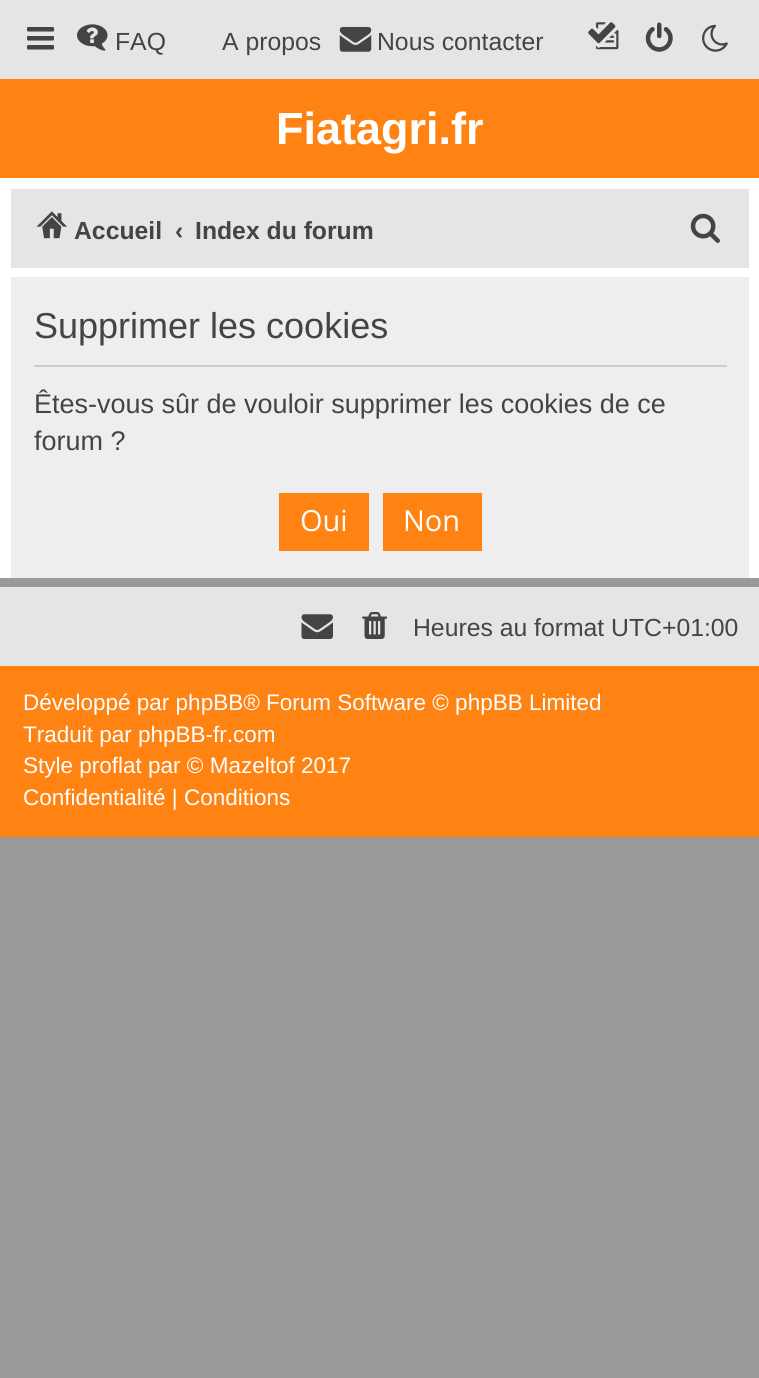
import math
import cairocffi as cairo

surface = cairo.ImageSurface(cairo.FORMAT_RGB24, 759, 1378)
cr = cairo.Context(surface)
options = cairo.FontOptions()
options.set_hint_metrics(cairo.HINT_METRICS_OFF)
options.set_hint_style(cairo.HINT_STYLE_NONE)
cr.set_font_options(options)
cr.set_miter_limit(4)


def use_color(code):
    cr.set_source_rgb(*(v / 255 for v in bytes.fromhex(code[-6:])))


def picture(path, x, y, w, h):
    cr.save()
    cr.set_source_surface(cairo.ImageSurface.create_from_png(path), x, y)
    cr.rectangle(x, y, w, h)
    cr.fill()
    cr.restore()


use_color("#999999")
cr.paint()
use_color("#e5e5e5")
cr.rectangle(0, 0, 759, 79)
cr.fill()
picture("img1.png", 27, 27, 27, 23)
picture("img2.png", 77, 24, 31, 27)
cr.select_font_face("Liberation Sans")
cr.set_font_size(24.75)
use_color("#444444")
cr.move_to(115, 50)
cr.show_text("FAQ")
cr.move_to(222, 50)
cr.show_text("A propos")
picture("img3.png", 339, 27, 33, 25)
cr.move_to(377, 50)
cr.show_text("Nous contacter")
picture("img4.png", 588, 22, 31, 28)
picture("img5.png", 645, 22, 28, 30)
picture("img6.png", 702, 24, 26, 28)
use_color("#ff8313")
cr.rectangle(0, 79, 759, 99)
cr.fill()
cr.select_font_face("Liberation Sans", cairo.FONT_SLANT_NORMAL, cairo.FONT_WEIGHT_BOLD)
cr.set_font_size(45)
use_color("#ffffff")
cr.move_to(276, 144)
cr.show_text("Fiatagri.fr")
cr.rectangle(0, 178, 759, 400)
cr.fill()
use_color("#e5e5e5")
cr.rectangle(11, 189, 738, 79)
cr.fill()
picture("img7.png", 36, 211, 31, 28)
cr.set_font_size(24.75)
use_color("#444444")
cr.move_to(74, 239)
cr.show_text("Accueil")
cr.move_to(175, 239)
cr.show_text("‹")
cr.move_to(195, 239)
cr.show_text("Index du forum")
picture("img8.png", 690, 213, 30, 30)
use_color("#eeeeee")
cr.rectangle(11, 277, 738, 301)
cr.fill()
use_color("#cccccc")
cr.rectangle(34, 365, 693, 2)
cr.fill()
cr.select_font_face("Liberation Sans")
cr.set_font_size(36)
use_color("#444444")
cr.move_to(34, 338)
cr.show_text("Supprimer les cookies")
cr.set_font_size(27)
cr.move_to(34, 413)
cr.show_text("Êtes-vous sûr de vouloir supprimer les cookies de ce")
cr.move_to(34, 450)
cr.show_text("forum ?")
use_color("#ff8313")
cr.rectangle(279, 493, 90, 58)
cr.fill()
cr.select_font_face("Open Sans")
cr.set_font_size(29)
use_color("#ffffff")
cr.move_to(300, 531)
cr.show_text("Oui")
use_color("#ff8313")
cr.rectangle(383, 493, 99, 58)
cr.fill()
use_color("#ffffff")
cr.move_to(403, 531)
cr.show_text("Non")
use_color("#e5e5e5")
cr.rectangle(0, 587, 759, 79)
cr.fill()
picture("img9.png", 301, 614, 32, 25)
picture("img10.png", 362, 612, 25, 27)
cr.select_font_face("Liberation Sans")
cr.set_font_size(24.75)
use_color("#444444")
cr.move_to(413, 636)
cr.show_text("Heures au format UTC+01:00")
use_color("#ff8313")
cr.rectangle(0, 666, 759, 171)
cr.fill()
cr.set_font_size(22.5)
use_color("#ffffff")
cr.move_to(23, 710)
cr.show_text("Développé par phpBB® Forum Software © phpBB Limited")
cr.move_to(23, 742)
cr.show_text("Traduit par phpBB-fr.com")
cr.move_to(23, 773)
cr.show_text("Style proflat par © Mazeltof 2017")
cr.move_to(23, 805)
cr.show_text("Confidentialité | Conditions")
surface.write_to_png("result.png")
